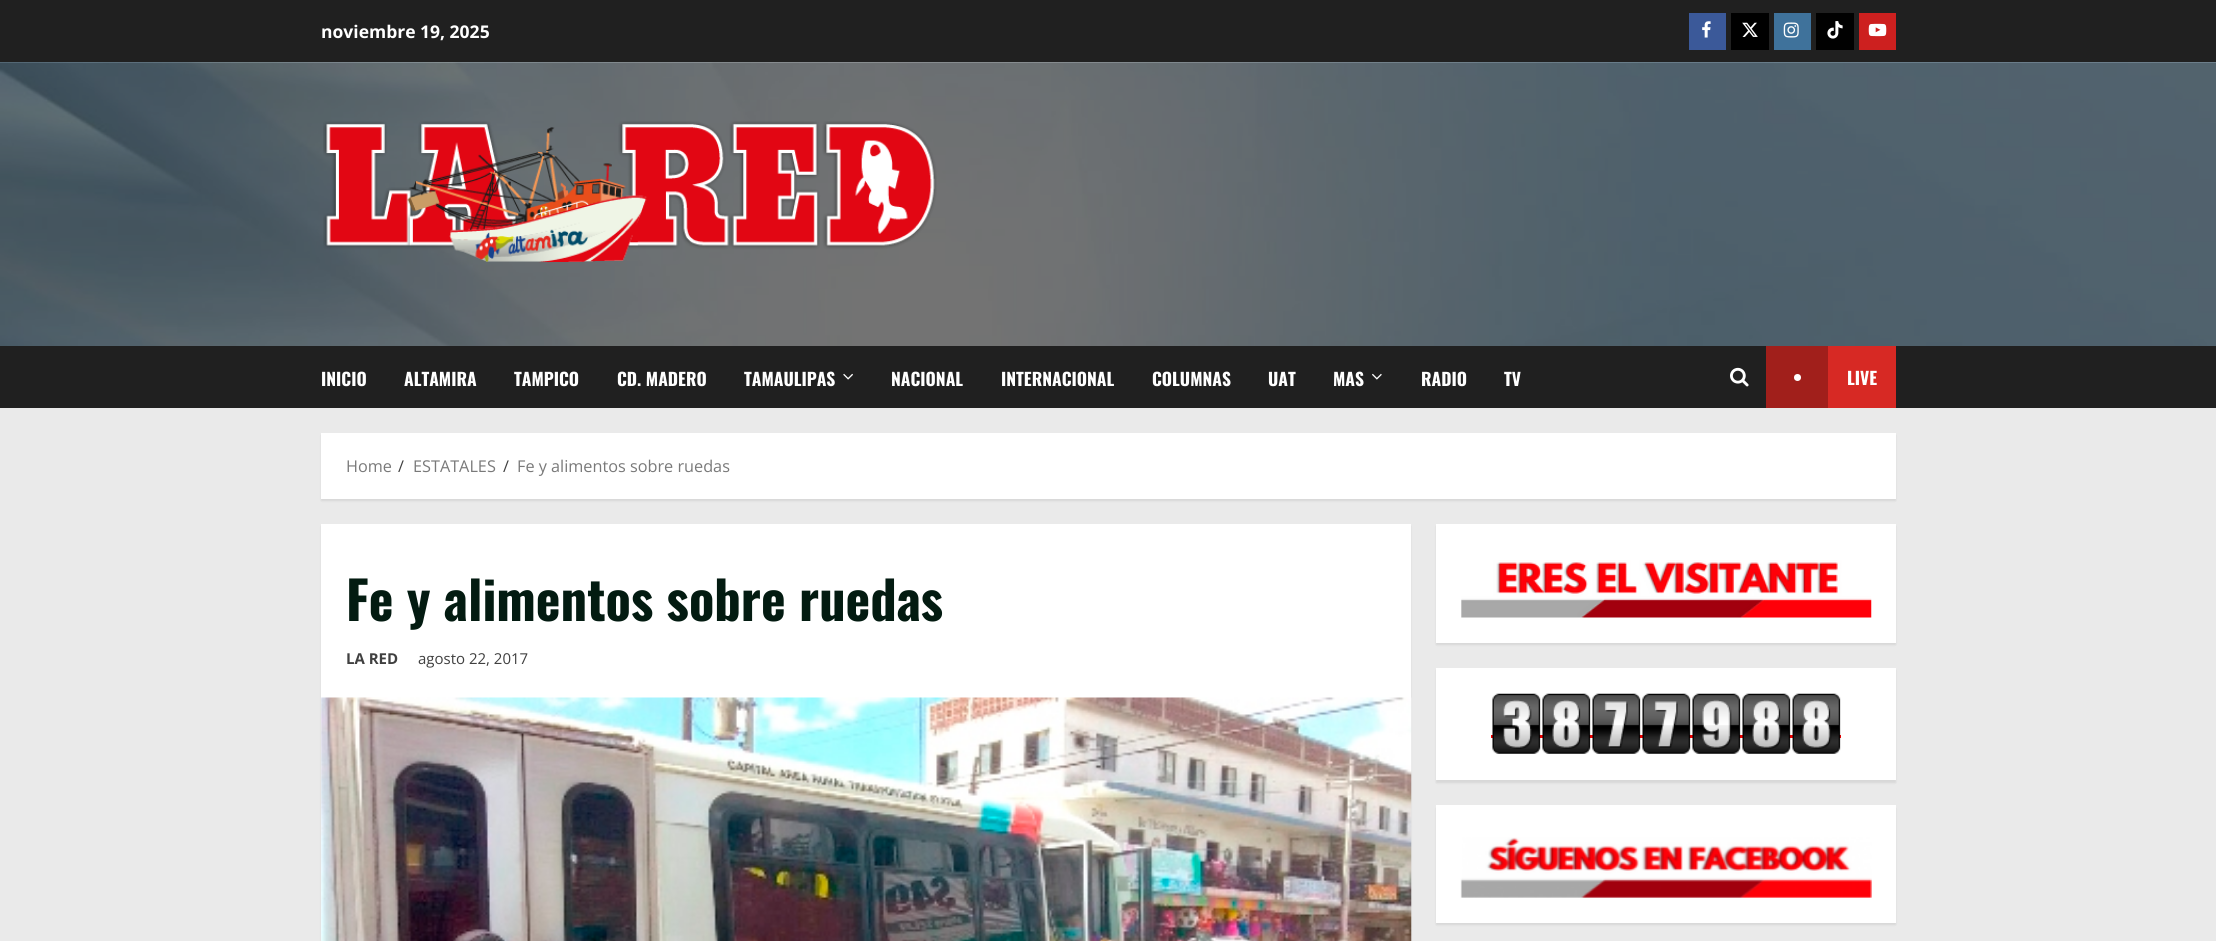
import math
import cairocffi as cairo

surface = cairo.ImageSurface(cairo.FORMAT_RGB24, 2216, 941)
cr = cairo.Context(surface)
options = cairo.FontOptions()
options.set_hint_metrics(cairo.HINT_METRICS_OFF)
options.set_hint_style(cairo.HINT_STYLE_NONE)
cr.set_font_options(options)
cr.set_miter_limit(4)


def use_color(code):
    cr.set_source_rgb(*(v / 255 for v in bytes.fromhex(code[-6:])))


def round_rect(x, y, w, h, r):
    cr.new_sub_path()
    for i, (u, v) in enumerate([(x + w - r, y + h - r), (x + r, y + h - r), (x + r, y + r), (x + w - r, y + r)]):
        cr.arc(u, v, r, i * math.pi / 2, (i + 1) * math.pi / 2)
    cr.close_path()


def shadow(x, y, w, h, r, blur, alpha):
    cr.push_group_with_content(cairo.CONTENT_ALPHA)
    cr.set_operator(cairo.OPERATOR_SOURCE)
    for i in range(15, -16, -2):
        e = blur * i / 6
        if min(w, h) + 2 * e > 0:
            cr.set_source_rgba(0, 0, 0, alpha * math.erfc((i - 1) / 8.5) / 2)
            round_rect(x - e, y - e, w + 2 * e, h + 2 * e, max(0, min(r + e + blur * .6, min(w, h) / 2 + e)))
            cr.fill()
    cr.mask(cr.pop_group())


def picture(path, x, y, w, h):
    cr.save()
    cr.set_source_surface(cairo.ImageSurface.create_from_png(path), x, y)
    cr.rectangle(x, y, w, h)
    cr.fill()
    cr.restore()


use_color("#eaeaea")
cr.paint()
use_color("#202020")
cr.rectangle(0, 0, 2216, 63)
cr.fill()
cr.select_font_face("Open Sans", cairo.FONT_SLANT_NORMAL, cairo.FONT_WEIGHT_BOLD)
cr.set_font_size(17.5)
use_color("#ffffff")
cr.move_to(321, 38)
cr.show_text("noviembre 19, 2025")
use_color("#3b5999")
cr.rectangle(1689, 13, 37, 37)
cr.fill()
picture("img1.png", 1702, 21, 9, 17)
use_color("#000000")
cr.rectangle(1731, 13, 38, 37)
cr.fill()
picture("img2.png", 1742, 22, 16, 15)
use_color("#3f729b")
cr.rectangle(1774, 13, 37, 37)
cr.fill()
picture("img3.png", 1783, 22, 16, 16)
use_color("#010101")
cr.rectangle(1816, 13, 38, 37)
cr.fill()
picture("img4.png", 1827, 21, 16, 18)
use_color("#cd201f")
cr.rectangle(1859, 13, 37, 37)
cr.fill()
picture("img5.png", 1868, 23, 19, 14)
picture("img6.png", 0, 62, 2216, 284)
picture("img7.png", 323, 121, 614, 142)
use_color("#202020")
cr.rectangle(0, 346, 2216, 62)
cr.fill()
cr.select_font_face("Oswald", cairo.FONT_SLANT_NORMAL, cairo.FONT_WEIGHT_BOLD)
use_color("#ffffff")
cr.move_to(321, 386)
cr.show_text("INICIO")
cr.move_to(404, 386)
cr.show_text("ALTAMIRA")
cr.move_to(514, 386)
cr.show_text("TAMPICO")
cr.move_to(617, 386)
cr.show_text("CD. MADERO")
cr.move_to(744, 386)
cr.show_text("TAMAULIPAS")
picture("img8.png", 843, 373, 10, 7)
cr.move_to(891, 386)
cr.show_text("NACIONAL")
cr.move_to(1001, 386)
cr.show_text("INTERNACIONAL")
cr.move_to(1152, 386)
cr.show_text("COLUMNAS")
cr.move_to(1268, 386)
cr.show_text("UAT")
cr.move_to(1333, 386)
cr.show_text("MAS")
picture("img9.png", 1372, 373, 10, 7)
cr.move_to(1421, 386)
cr.show_text("RADIO")
cr.move_to(1504, 386)
cr.show_text("TV")
picture("img10.png", 1730, 367, 19, 20)
use_color("#d72924")
cr.rectangle(1828, 346, 68, 62)
cr.fill()
use_color("#a11f1b")
cr.rectangle(1766, 346, 62, 62)
cr.fill()
use_color("#ffffff")
cr.arc(1797.5, 377.5, 3.5, 0, 2 * math.pi)
cr.fill()
cr.move_to(1847, 385)
cr.show_text("LIVE")
use_color("#000000")
shadow(321, 435, 1575, 66, 0, 1, 0.08)
use_color("#ffffff")
cr.rectangle(321, 433, 1575, 66)
cr.fill()
cr.select_font_face("Open Sans")
cr.set_font_size(16.25)
use_color("#797979")
cr.move_to(346, 472)
cr.show_text("Home")
use_color("#404040")
cr.move_to(398, 472)
cr.show_text("/")
use_color("#797979")
cr.move_to(413, 472)
cr.show_text("ESTATALES")
use_color("#404040")
cr.move_to(503, 472)
cr.show_text("/")
use_color("#797979")
cr.move_to(517, 472)
cr.show_text("Fe y alimentos sobre ruedas")
use_color("#000000")
shadow(321, 526, 1090, 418, 0, 1, 0.08)
use_color("#ffffff")
cr.rectangle(321, 524, 1090, 417)
cr.fill()
cr.select_font_face("Oswald", cairo.FONT_SLANT_NORMAL, cairo.FONT_WEIGHT_BOLD)
cr.set_font_size(52.5)
use_color("#031b11")
cr.move_to(346, 621)
cr.show_text("Fe y alimentos sobre ruedas")
cr.select_font_face("Open Sans", cairo.FONT_SLANT_NORMAL, cairo.FONT_WEIGHT_BOLD)
cr.set_font_size(15)
use_color("#404040")
cr.move_to(346, 664)
cr.show_text("LA RED")
cr.select_font_face("Open Sans")
cr.move_to(418, 664)
cr.show_text("agosto 22, 2017")
picture("img11.png", 321, 697, 1091, 244)
use_color("#000000")
shadow(1436, 526, 460, 119, 0, 1, 0.08)
use_color("#ffffff")
cr.rectangle(1436, 524, 460, 119)
cr.fill()
picture("img12.png", 1461, 560, 411, 58)
use_color("#000000")
shadow(1436, 670, 460, 113, 0, 1, 0.08)
use_color("#ffffff")
cr.rectangle(1436, 668, 460, 112)
cr.fill()
use_color("#ff0000")
cr.rectangle(1491, 735, 350, 3)
cr.fill()
picture("img13.png", 1492, 693, 349, 61)
use_color("#000000")
shadow(1436, 808, 460, 117, 0, 1, 0.08)
use_color("#ffffff")
cr.rectangle(1436, 805, 460, 118)
cr.fill()
picture("img14.png", 1460, 837, 412, 61)
surface.write_to_png("result.png")
